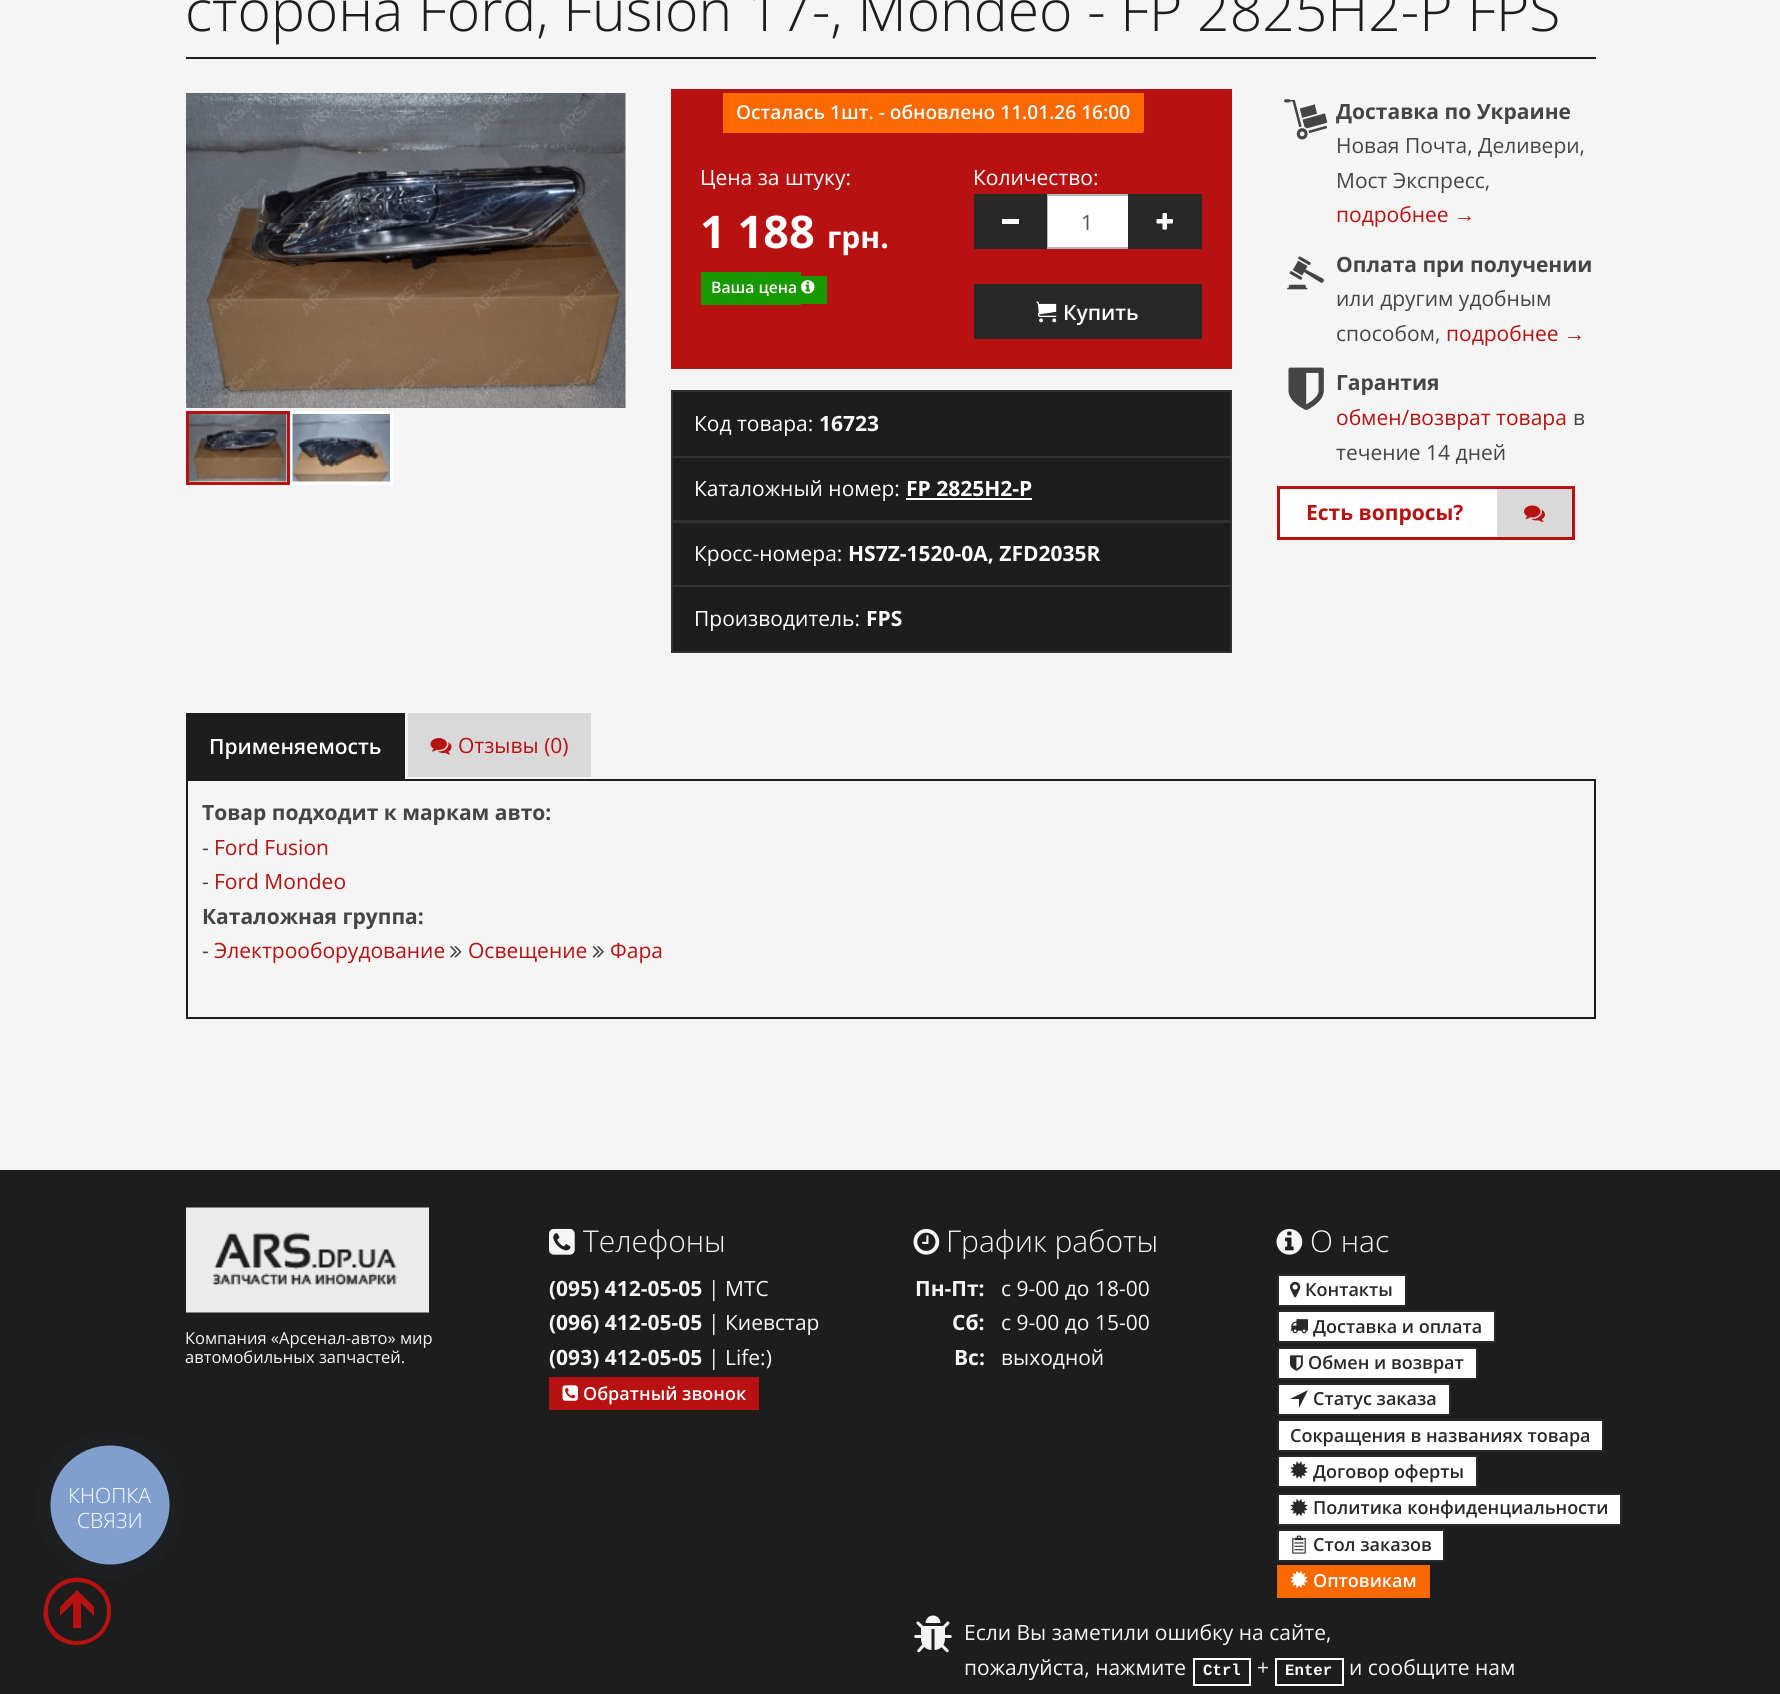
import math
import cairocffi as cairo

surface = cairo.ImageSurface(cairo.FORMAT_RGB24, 1780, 1694)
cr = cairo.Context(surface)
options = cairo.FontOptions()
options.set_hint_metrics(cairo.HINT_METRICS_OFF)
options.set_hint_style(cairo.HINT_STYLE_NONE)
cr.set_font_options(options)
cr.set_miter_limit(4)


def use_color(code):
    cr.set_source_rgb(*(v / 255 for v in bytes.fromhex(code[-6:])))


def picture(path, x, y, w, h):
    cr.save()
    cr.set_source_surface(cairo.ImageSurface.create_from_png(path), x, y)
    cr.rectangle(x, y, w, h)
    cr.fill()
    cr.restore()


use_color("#f5f5f5")
cr.paint()
use_color("#1d1d1d")
cr.rectangle(186, 57, 1410, 2)
cr.fill()
cr.select_font_face("Open Sans Light")
cr.set_font_size(57)
cr.move_to(185, 31)
cr.show_text("сторона Ford, Fusion 17-, Mondeo - FP 2825H2-P FPS")
picture("img1.png", 186, 93, 440, 315)
use_color("#ffffff")
cr.rectangle(187.5, 412.5, 101, 71)
cr.fill_preserve()
use_color("#b81111")
cr.set_line_width(3)
cr.stroke()
picture("img2.png", 189, 414, 98, 68)
use_color("#ffffff")
cr.rectangle(290, 411, 103, 74)
cr.fill()
picture("img3.png", 292, 414, 98, 68)
use_color("#b81111")
cr.rectangle(671, 89, 561, 280)
cr.fill()
use_color("#fa6800")
cr.rectangle(723, 93, 156, 40)
cr.fill()
cr.rectangle(879, 93, 263, 38)
cr.fill()
cr.select_font_face("Open Sans SemiBold")
cr.set_font_size(19.1)
use_color("#ffffff")
cr.move_to(736, 119)
cr.show_text("Осталась 1шт. - обновлено 11.01.26 16:00")
use_color("#fa6800")
cr.rectangle(1142, 93, 2, 39)
cr.fill()
cr.rectangle(879, 131, 264, 2)
cr.fill()
cr.select_font_face("Open Sans")
cr.set_font_size(21)
use_color("#ffffff")
cr.move_to(700, 185)
cr.show_text("Цена за штуку:")
cr.select_font_face("Open Sans", cairo.FONT_SLANT_NORMAL, cairo.FONT_WEIGHT_BOLD)
cr.set_font_size(45)
cr.move_to(700, 248)
cr.show_text("1 188")
cr.set_font_size(30)
cr.move_to(827, 248)
cr.show_text("грн.")
use_color("#199900")
cr.rectangle(701, 272, 100, 33)
cr.fill()
cr.rectangle(801, 276, 26, 28)
cr.fill()
cr.select_font_face("Open Sans SemiBold")
cr.set_font_size(15.75)
use_color("#ffffff")
cr.move_to(711, 293)
cr.show_text("Ваша цена")
picture("img4.png", 801, 280, 14, 14)
cr.select_font_face("Open Sans")
cr.set_font_size(21)
cr.move_to(973, 185)
cr.show_text("Количество:")
cr.rectangle(1047, 195, 82, 53)
cr.fill_preserve()
use_color("#b6b6b6")
cr.set_line_width(2)
cr.stroke()
use_color("#282828")
cr.rectangle(974, 194, 73, 55)
cr.fill()
use_color("#ffffff")
cr.rectangle(1002, 219, 17, 5)
cr.fill()
use_color("#555555")
cr.move_to(1081, 230)
cr.show_text("1")
use_color("#282828")
cr.rectangle(1128, 194, 74, 55)
cr.fill()
picture("img5.png", 1156, 213, 17, 17)
cr.rectangle(974, 284, 228, 55)
cr.fill()
picture("img6.png", 1036, 301, 21, 22)
cr.select_font_face("Open Sans SemiBold")
use_color("#ffffff")
cr.move_to(1063, 320)
cr.show_text("Купить")
use_color("#1d1d1d")
cr.rectangle(672, 391, 559, 66)
cr.fill_preserve()
use_color("#313131")
cr.stroke()
cr.select_font_face("Open Sans")
use_color("#ffffff")
cr.move_to(694, 431)
cr.show_text("Код товара:")
cr.select_font_face("Open Sans", cairo.FONT_SLANT_NORMAL, cairo.FONT_WEIGHT_BOLD)
cr.move_to(819, 431)
cr.show_text("16723")
use_color("#1d1d1d")
cr.rectangle(672, 457, 559, 64)
cr.fill_preserve()
use_color("#313131")
cr.stroke()
cr.select_font_face("Open Sans")
use_color("#ffffff")
cr.move_to(694, 496)
cr.show_text("Каталожный номер:")
cr.select_font_face("Open Sans", cairo.FONT_SLANT_NORMAL, cairo.FONT_WEIGHT_BOLD)
cr.move_to(906, 496)
cr.show_text("FP 2825H2-P")
cr.rectangle(906, 498, 126, 2)
cr.fill()
use_color("#1d1d1d")
cr.rectangle(672, 522, 559, 64)
cr.fill_preserve()
use_color("#313131")
cr.stroke()
cr.select_font_face("Open Sans")
use_color("#ffffff")
cr.move_to(694, 561)
cr.show_text("Кросс-номера:")
cr.select_font_face("Open Sans", cairo.FONT_SLANT_NORMAL, cairo.FONT_WEIGHT_BOLD)
cr.move_to(848, 561)
cr.show_text("HS7Z-1520-0A, ZFD2035R")
use_color("#1d1d1d")
cr.rectangle(672, 586, 559, 66)
cr.fill_preserve()
use_color("#313131")
cr.stroke()
cr.select_font_face("Open Sans")
use_color("#ffffff")
cr.move_to(694, 626)
cr.show_text("Производитель:")
cr.select_font_face("Open Sans", cairo.FONT_SLANT_NORMAL, cairo.FONT_WEIGHT_BOLD)
cr.move_to(866, 626)
cr.show_text("FPS")
picture("img7.png", 1284, 99, 44, 41)
use_color("#454545")
cr.move_to(1336, 119)
cr.show_text("Доставка по Украине")
cr.select_font_face("Open Sans")
cr.move_to(1336, 153)
cr.show_text("Новая Почта, Деливери,")
cr.move_to(1336, 188)
cr.show_text("Мост Экспресс,")
use_color("#b81111")
cr.move_to(1336, 222)
cr.show_text("подробнее")
cr.select_font_face("Liberation Sans")
cr.move_to(1454, 222)
cr.show_text("→")
picture("img8.png", 1287, 256, 37, 34)
cr.select_font_face("Open Sans", cairo.FONT_SLANT_NORMAL, cairo.FONT_WEIGHT_BOLD)
use_color("#454545")
cr.move_to(1336, 272)
cr.show_text("Оплата при получении")
cr.select_font_face("Open Sans")
cr.move_to(1336, 306)
cr.show_text("или другим удобным")
cr.move_to(1336, 341)
cr.show_text("способом,")
use_color("#b81111")
cr.move_to(1446, 341)
cr.show_text("подробнее")
cr.select_font_face("Liberation Sans")
cr.move_to(1564, 341)
cr.show_text("→")
picture("img9.png", 1288, 367, 36, 43)
cr.select_font_face("Open Sans", cairo.FONT_SLANT_NORMAL, cairo.FONT_WEIGHT_BOLD)
use_color("#454545")
cr.move_to(1336, 390)
cr.show_text("Гарантия")
cr.select_font_face("Open Sans")
use_color("#b81111")
cr.move_to(1336, 425)
cr.show_text("обмен/возврат товара")
use_color("#454545")
cr.move_to(1573, 425)
cr.show_text("в")
cr.move_to(1336, 460)
cr.show_text("течение 14 дней")
use_color("#ffffff")
cr.rectangle(1280, 489, 217, 48)
cr.fill()
cr.rectangle(1278.5, 487.5, 295, 51)
use_color("#b81111")
cr.set_line_width(3)
cr.stroke()
cr.select_font_face("Open Sans", cairo.FONT_SLANT_NORMAL, cairo.FONT_WEIGHT_BOLD)
cr.move_to(1306, 520)
cr.show_text("Есть вопросы?")
use_color("#d9d9d9")
cr.rectangle(1497, 489, 75, 48)
cr.fill()
picture("img10.png", 1524, 505, 21, 17)
use_color("#1d1d1d")
cr.rectangle(186, 713, 219, 66)
cr.fill()
cr.select_font_face("Open Sans SemiBold")
use_color("#ffffff")
cr.move_to(209, 754)
cr.show_text("Применяемость")
use_color("#d9d9d9")
cr.rectangle(408, 713, 183, 64)
cr.fill()
picture("img11.png", 430, 738, 22, 17)
cr.select_font_face("Open Sans")
use_color("#b81111")
cr.move_to(458, 753)
cr.show_text("Отзывы (0)")
cr.rectangle(187, 780, 1408, 238)
use_color("#1d1d1d")
cr.set_line_width(2)
cr.stroke()
cr.select_font_face("Open Sans", cairo.FONT_SLANT_NORMAL, cairo.FONT_WEIGHT_BOLD)
use_color("#454545")
cr.move_to(202, 820)
cr.show_text("Товар подходит к маркам авто:")
cr.select_font_face("Open Sans")
cr.move_to(202, 855)
cr.show_text("-")
use_color("#b81111")
cr.move_to(214, 855)
cr.show_text("Ford Fusion")
use_color("#454545")
cr.move_to(202, 889)
cr.show_text("-")
use_color("#b81111")
cr.move_to(214, 889)
cr.show_text("Ford Mondeo")
cr.select_font_face("Open Sans", cairo.FONT_SLANT_NORMAL, cairo.FONT_WEIGHT_BOLD)
use_color("#454545")
cr.move_to(202, 924)
cr.show_text("Каталожная группа:")
cr.select_font_face("Open Sans")
cr.move_to(202, 958)
cr.show_text("-")
use_color("#b81111")
cr.move_to(214, 958)
cr.show_text("Электрооборудование")
picture("img12.png", 450, 946, 12, 12)
cr.move_to(468, 958)
cr.show_text("Освещение")
picture("img13.png", 592, 946, 12, 12)
cr.move_to(610, 958)
cr.show_text("Фара")
use_color("#1d1d1d")
cr.rectangle(0, 1170, 1780, 524)
cr.fill()
use_color("#1e1f21")
cr.arc(110, 1505, 74, 0, 2 * math.pi)
cr.fill()
use_color("#809fcf")
cr.arc(110, 1505, 59.5, 0, 2 * math.pi)
cr.fill()
cr.select_font_face("Open Sans Light")
use_color("#ffffff")
cr.move_to(68, 1503)
cr.show_text("КНОПКА")
cr.move_to(77, 1528)
cr.show_text("СВЯЗИ")
picture("img14.png", 186, 1207, 243, 106)
cr.select_font_face("Open Sans")
cr.set_font_size(16.5)
use_color("#f5f5f5")
cr.move_to(185, 1344)
cr.show_text("Компания «Арсенал-авто» мир")
cr.move_to(185, 1363)
cr.show_text("автомобильных запчастей.")
picture("img15.png", 549, 1228, 26, 27)
cr.select_font_face("Open Sans Light")
cr.set_font_size(30)
cr.move_to(583, 1252)
cr.show_text("Телефоны")
cr.select_font_face("Open Sans", cairo.FONT_SLANT_NORMAL, cairo.FONT_WEIGHT_BOLD)
cr.set_font_size(21)
cr.move_to(549, 1296)
cr.show_text("(095) 412-05-05")
cr.select_font_face("Open Sans")
cr.move_to(708, 1296)
cr.show_text("| МТС")
cr.select_font_face("Open Sans", cairo.FONT_SLANT_NORMAL, cairo.FONT_WEIGHT_BOLD)
cr.move_to(549, 1330)
cr.show_text("(096) 412-05-05")
cr.select_font_face("Open Sans")
cr.move_to(708, 1330)
cr.show_text("| Киевстар")
cr.select_font_face("Open Sans", cairo.FONT_SLANT_NORMAL, cairo.FONT_WEIGHT_BOLD)
cr.move_to(549, 1365)
cr.show_text("(093) 412-05-05")
cr.select_font_face("Open Sans")
cr.move_to(708, 1365)
cr.show_text("| Life:)")
use_color("#b81111")
cr.rectangle(549, 1377, 210, 33)
cr.fill()
picture("img16.png", 562, 1385, 16, 16)
cr.select_font_face("Open Sans SemiBold")
cr.set_font_size(18)
use_color("#ffffff")
cr.move_to(583, 1400)
cr.show_text("Обратный звонок")
picture("img17.png", 913, 1228, 27, 27)
cr.select_font_face("Open Sans Light")
cr.set_font_size(30)
use_color("#f5f5f5")
cr.move_to(946, 1252)
cr.show_text("График работы")
cr.select_font_face("Open Sans", cairo.FONT_SLANT_NORMAL, cairo.FONT_WEIGHT_BOLD)
cr.set_font_size(21)
cr.move_to(915, 1296)
cr.show_text("Пн-Пт:")
cr.select_font_face("Open Sans")
cr.move_to(1001, 1296)
cr.show_text("с 9-00 до 18-00")
cr.select_font_face("Open Sans", cairo.FONT_SLANT_NORMAL, cairo.FONT_WEIGHT_BOLD)
cr.move_to(952, 1330)
cr.show_text("Сб:")
cr.select_font_face("Open Sans")
cr.move_to(1001, 1330)
cr.show_text("с 9-00 до 15-00")
cr.select_font_face("Open Sans", cairo.FONT_SLANT_NORMAL, cairo.FONT_WEIGHT_BOLD)
cr.move_to(954, 1365)
cr.show_text("Вс:")
cr.select_font_face("Open Sans")
cr.move_to(1001, 1365)
cr.show_text("выходной")
picture("img18.png", 1276, 1228, 27, 27)
cr.select_font_face("Open Sans Light")
cr.set_font_size(30)
cr.move_to(1310, 1252)
cr.show_text("О нас")
use_color("#ffffff")
cr.rectangle(1278, 1275, 128, 31)
cr.fill_preserve()
use_color("#282828")
cr.stroke()
picture("img19.png", 1290, 1281, 11, 17)
cr.select_font_face("Open Sans SemiBold")
cr.set_font_size(18)
cr.move_to(1305, 1296)
cr.show_text("Контакты")
use_color("#ffffff")
cr.rectangle(1278, 1311, 217, 31)
cr.fill_preserve()
use_color("#282828")
cr.stroke()
picture("img20.png", 1290, 1319, 18, 15)
cr.move_to(1313, 1333)
cr.show_text("Доставка и оплата")
use_color("#ffffff")
cr.rectangle(1278, 1348, 199, 31)
cr.fill_preserve()
use_color("#282828")
cr.stroke()
picture("img21.png", 1290, 1355, 13, 16)
cr.move_to(1308, 1369)
cr.show_text("Обмен и возврат")
use_color("#ffffff")
cr.rectangle(1278, 1384, 172, 31)
cr.fill_preserve()
use_color("#282828")
cr.stroke()
cr.new_path()
cr.move_to(1299, 1408)
cr.line_to(1308, 1390)
cr.line_to(1290, 1399)
cr.line_to(1299, 1399)
cr.close_path()
cr.fill()
cr.move_to(1313, 1405)
cr.show_text("Статус заказа")
use_color("#ffffff")
cr.rectangle(1278, 1420, 325, 31)
cr.fill_preserve()
use_color("#282828")
cr.stroke()
cr.move_to(1290, 1442)
cr.show_text("Сокращения в названиях товара")
use_color("#ffffff")
cr.rectangle(1278, 1456, 199, 31)
cr.fill_preserve()
use_color("#282828")
cr.stroke()
picture("img22.png", 1290, 1461, 18, 18)
cr.move_to(1313, 1478)
cr.show_text("Договор оферты")
use_color("#ffffff")
cr.rectangle(1278, 1494, 343, 31)
cr.fill_preserve()
use_color("#282828")
cr.stroke()
picture("img23.png", 1290, 1499, 18, 17)
cr.move_to(1313, 1514)
cr.show_text("Политика конфиденциальности")
use_color("#ffffff")
cr.rectangle(1278, 1530, 166, 31)
cr.fill_preserve()
use_color("#282828")
cr.stroke()
picture("img24.png", 1292, 1535, 14, 19)
cr.move_to(1313, 1551)
cr.show_text("Стол заказов")
use_color("#fa6800")
cr.rectangle(1277, 1565, 153, 33)
cr.fill()
picture("img25.png", 1290, 1571, 18, 17)
use_color("#ffffff")
cr.move_to(1313, 1587)
cr.show_text("Оптовикам")
picture("img26.png", 914, 1615, 38, 38)
cr.select_font_face("Open Sans")
cr.set_font_size(21)
use_color("#f5f5f5")
cr.move_to(964, 1640)
cr.show_text("Если Вы заметили ошибку на сайте,")
cr.move_to(964, 1675)
cr.show_text("пожалуйста, нажмите")
use_color("#161616")
cr.rectangle(1194, 1683, 56, 1)
cr.fill()
cr.rectangle(1194, 1659, 56, 26)
use_color("#ffffff")
cr.stroke()
cr.select_font_face("Liberation Mono", cairo.FONT_SLANT_NORMAL, cairo.FONT_WEIGHT_BOLD)
cr.set_font_size(15.75)
cr.move_to(1203, 1675)
cr.show_text("Ctrl")
cr.select_font_face("Open Sans")
cr.set_font_size(21)
use_color("#f5f5f5")
cr.move_to(1257, 1675)
cr.show_text("+")
use_color("#161616")
cr.rectangle(1277, 1683, 66, 1)
cr.fill()
cr.rectangle(1276, 1659, 67, 26)
use_color("#ffffff")
cr.stroke()
cr.select_font_face("Liberation Mono", cairo.FONT_SLANT_NORMAL, cairo.FONT_WEIGHT_BOLD)
cr.set_font_size(15.75)
cr.move_to(1285, 1675)
cr.show_text("Enter")
cr.select_font_face("Open Sans")
cr.set_font_size(21)
use_color("#f5f5f5")
cr.move_to(1349, 1675)
cr.show_text("и сообщите нам")
use_color("#b81111")
cr.new_path()
cr.move_to(60, 1607)
cr.line_to(77, 1590)
cr.line_to(94, 1607)
cr.line_to(94, 1616)
cr.line_to(81, 1603)
cr.line_to(81, 1628)
cr.line_to(73, 1628)
cr.line_to(73, 1603)
cr.line_to(60, 1616)
cr.close_path()
cr.move_to(44, 1611)
cr.curve_to(44, 1605, 46, 1598, 49, 1593)
cr.curve_to(68, 1565, 111, 1578, 111, 1611)
cr.curve_to(111, 1648, 60, 1658, 46, 1625)
cr.curve_to(45, 1623, 42, 1614, 44, 1611)
cr.close_path()
cr.move_to(107, 1611)
cr.curve_to(107, 1595, 94, 1582, 77, 1582)
cr.curve_to(61, 1582, 48, 1595, 48, 1611)
cr.curve_to(48, 1628, 61, 1641, 77, 1641)
cr.curve_to(94, 1641, 107, 1628, 107, 1611)
cr.close_path()
cr.fill()
surface.write_to_png("result.png")
